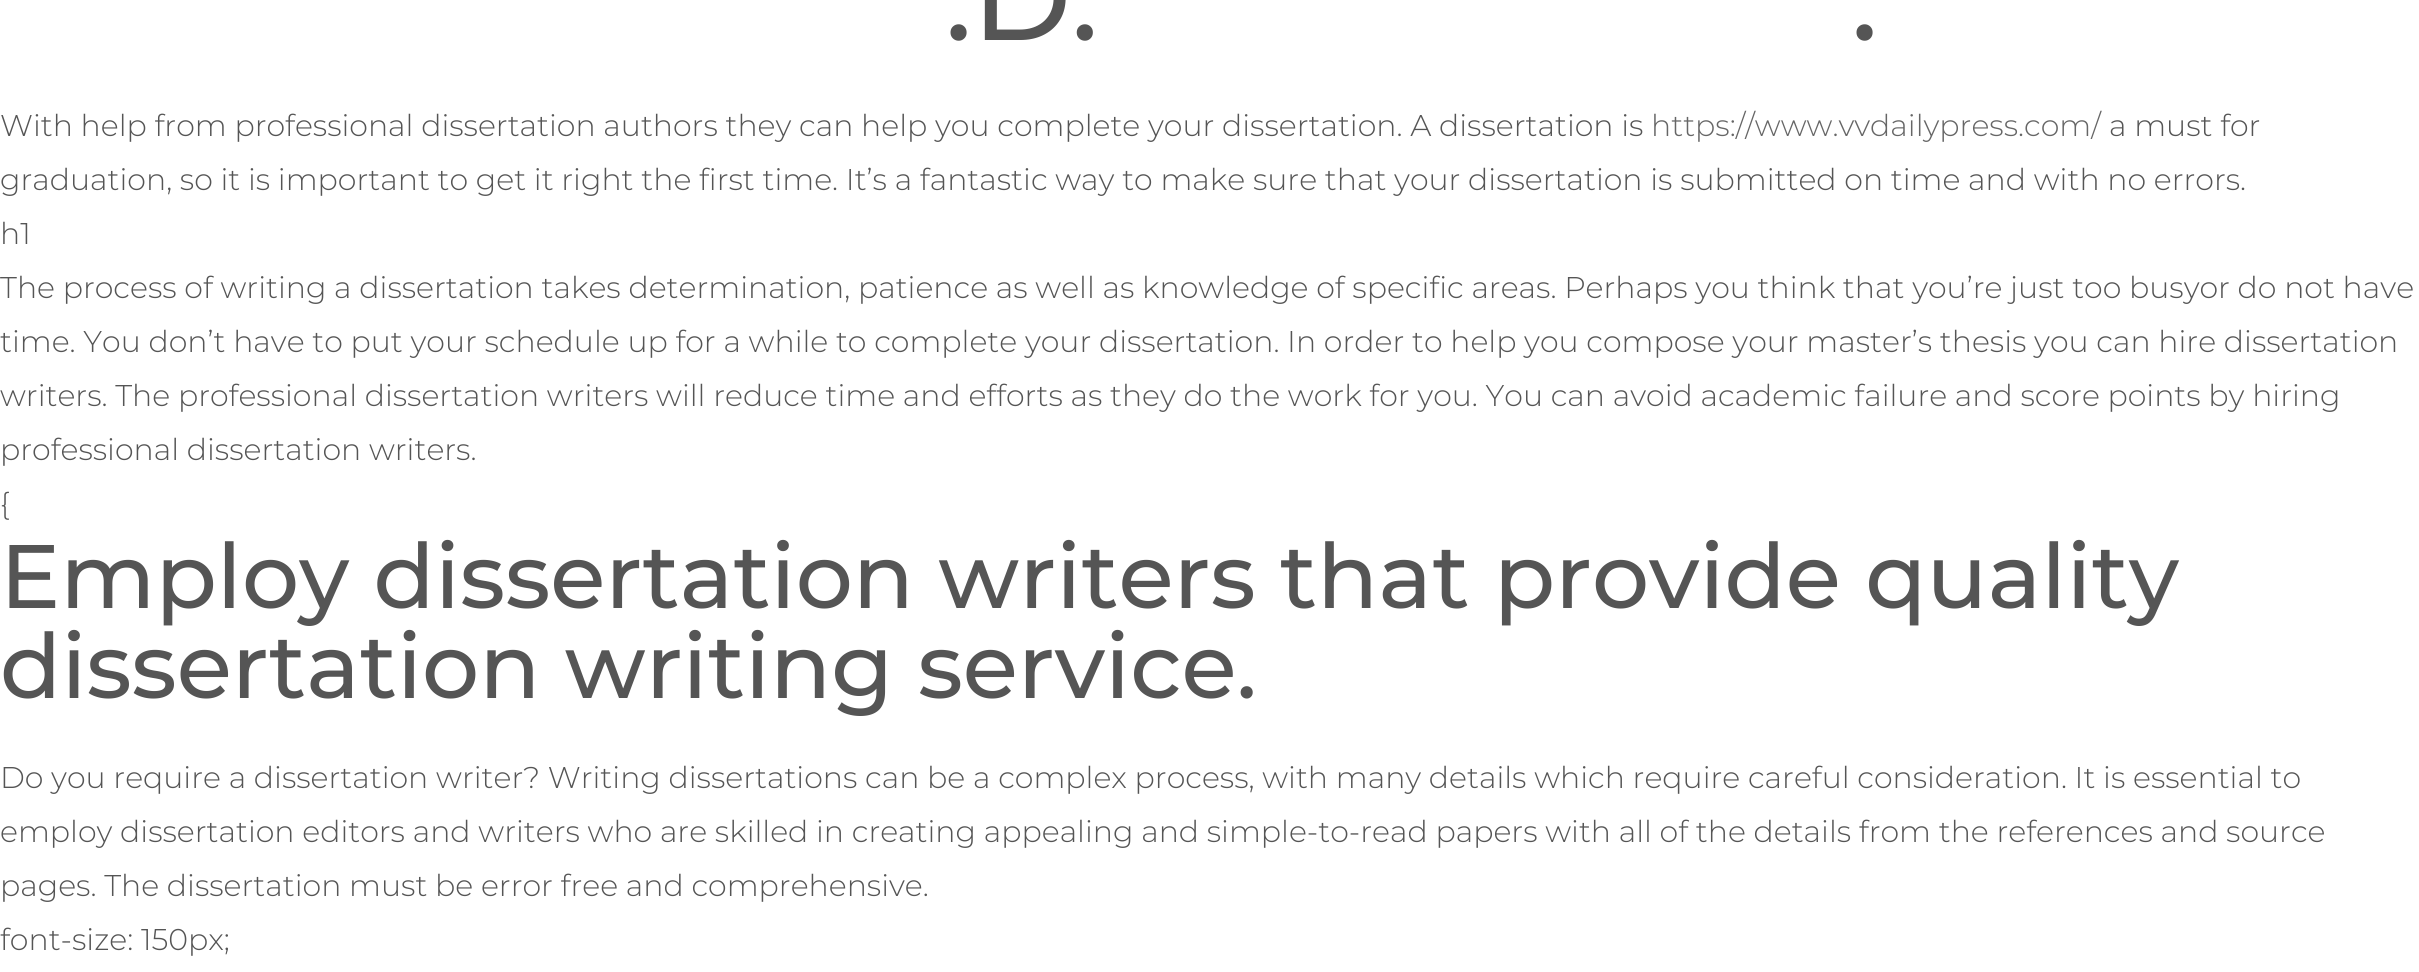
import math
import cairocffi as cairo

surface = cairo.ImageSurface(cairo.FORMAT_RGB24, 2419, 972)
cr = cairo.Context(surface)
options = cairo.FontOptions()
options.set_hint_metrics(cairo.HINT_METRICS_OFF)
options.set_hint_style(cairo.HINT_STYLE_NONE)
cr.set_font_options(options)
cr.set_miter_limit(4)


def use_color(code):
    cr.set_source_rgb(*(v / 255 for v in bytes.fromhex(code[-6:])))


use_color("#ffffff")
cr.paint()
cr.select_font_face("Montserrat Medium")
cr.set_font_size(120)
use_color("#555555")
cr.move_to(945, 40)
cr.show_text(".D.")
cr.move_to(1851, 40)
cr.show_text(".")
cr.select_font_face("Montserrat Light")
cr.set_font_size(30)
cr.move_to(0, 136)
cr.show_text("With help from professional dissertation authors they can help you complete your dissertation. A dissertation is")
use_color("#666666")
cr.move_to(1651, 136)
cr.show_text("https://www.vvdailypress.com/")
use_color("#555555")
cr.move_to(2109, 136)
cr.show_text("a must for")
cr.move_to(0, 190)
cr.show_text("graduation, so it is important to get it right the first time. It’s a fantastic way to make sure that your dissertation is submitted on time and with no errors.")
cr.move_to(0, 244)
cr.show_text("h1")
cr.move_to(0, 298)
cr.show_text("The process of writing a dissertation takes determination, patience as well as knowledge of specific areas. Perhaps you think that you’re just too busyor do not have")
cr.move_to(0, 352)
cr.show_text("time. You don’t have to put your schedule up for a while to complete your dissertation. In order to help you compose your master’s thesis you can hire dissertation")
cr.move_to(0, 406)
cr.show_text("writers. The professional dissertation writers will reduce time and efforts as they do the work for you. You can avoid academic failure and score points by hiring")
cr.move_to(0, 460)
cr.show_text("professional dissertation writers.")
cr.move_to(0, 514)
cr.show_text("{")
cr.select_font_face("Montserrat Medium")
cr.set_font_size(90)
cr.move_to(0, 608)
cr.show_text("Employ dissertation writers that provide quality")
cr.move_to(0, 698)
cr.show_text("dissertation writing service.")
cr.select_font_face("Montserrat Light")
cr.set_font_size(30)
cr.move_to(0, 788)
cr.show_text("Do you require a dissertation writer? Writing dissertations can be a complex process, with many details which require careful consideration. It is essential to")
cr.move_to(0, 842)
cr.show_text("employ dissertation editors and writers who are skilled in creating appealing and simple-to-read papers with all of the details from the references and source")
cr.move_to(0, 896)
cr.show_text("pages. The dissertation must be error free and comprehensive.")
cr.move_to(0, 950)
cr.show_text("font-size: 150px;")
surface.write_to_png("result.png")
